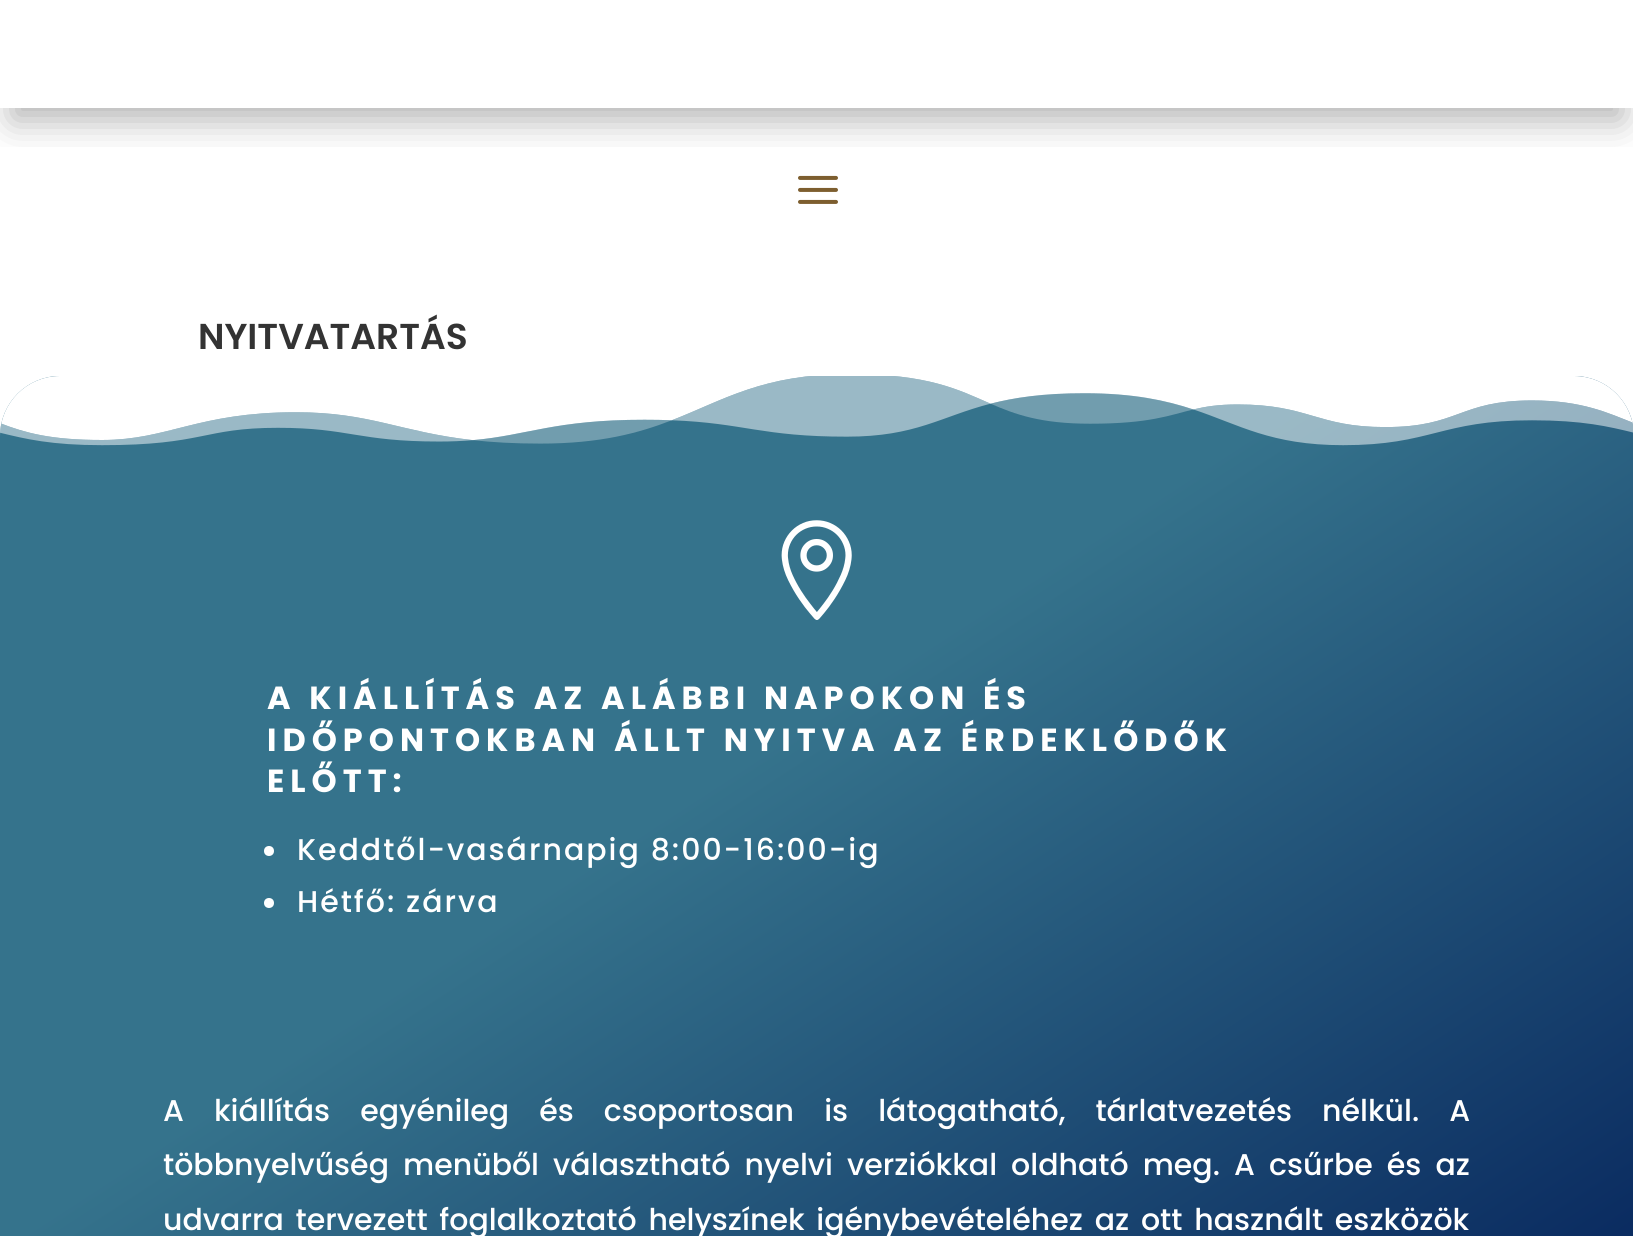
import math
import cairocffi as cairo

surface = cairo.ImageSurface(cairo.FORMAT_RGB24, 1633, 1236)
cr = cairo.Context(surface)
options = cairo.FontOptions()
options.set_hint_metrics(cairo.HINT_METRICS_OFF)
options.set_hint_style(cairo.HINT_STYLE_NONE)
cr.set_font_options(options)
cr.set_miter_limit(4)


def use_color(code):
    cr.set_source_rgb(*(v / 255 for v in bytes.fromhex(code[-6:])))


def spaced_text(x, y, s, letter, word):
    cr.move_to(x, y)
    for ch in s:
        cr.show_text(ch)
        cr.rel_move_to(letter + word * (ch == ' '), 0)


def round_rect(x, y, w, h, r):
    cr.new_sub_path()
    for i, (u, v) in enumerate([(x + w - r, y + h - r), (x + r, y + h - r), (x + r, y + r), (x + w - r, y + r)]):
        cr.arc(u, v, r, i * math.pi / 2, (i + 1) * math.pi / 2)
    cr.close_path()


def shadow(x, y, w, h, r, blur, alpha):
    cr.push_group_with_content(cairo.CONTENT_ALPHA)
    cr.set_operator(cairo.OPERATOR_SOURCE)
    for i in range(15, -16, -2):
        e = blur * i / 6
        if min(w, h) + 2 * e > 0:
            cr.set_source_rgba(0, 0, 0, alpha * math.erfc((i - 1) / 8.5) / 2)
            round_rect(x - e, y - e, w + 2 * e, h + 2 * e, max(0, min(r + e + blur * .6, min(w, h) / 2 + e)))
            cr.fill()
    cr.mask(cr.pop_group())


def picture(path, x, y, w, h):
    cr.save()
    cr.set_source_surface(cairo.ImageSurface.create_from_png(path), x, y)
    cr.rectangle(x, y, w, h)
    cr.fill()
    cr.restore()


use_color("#ffffff")
cr.paint()
cr.save()
cr.rectangle(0, 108, 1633, 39)
cr.clip()
use_color("#000000")
shadow(12, -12, 1610, 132, 0, 18, 0.3)
cr.restore()
picture("img1.png", 798, 175, 40, 29)
cr.select_font_face("Poppins SemiBold")
cr.set_font_size(36)
use_color("#333333")
cr.move_to(198, 349)
cr.show_text("NYITVATARTÁS")
gradient = cairo.LinearGradient(320, 168, 1314, 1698)
gradient.add_color_stop_rgba(0.4, 0.208, 0.451, 0.549, 1)
gradient.add_color_stop_rgba(1, 0, 0.102, 0.337, 1)
cr.set_source(gradient)
cr.new_path()
cr.move_to(60, 376)
cr.line_to(1574, 376)
cr.curve_to(1607, 376, 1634, 403, 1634, 436)
cr.line_to(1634, 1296)
cr.line_to(0, 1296)
cr.line_to(0, 436)
cr.curve_to(0, 403, 27, 376, 60, 376)
cr.close_path()
cr.fill()
picture("img2.png", 0, 376, 1633, 70)
picture("img3.png", 781, 520, 71, 100)
cr.select_font_face("Poppins", cairo.FONT_SLANT_NORMAL, cairo.FONT_WEIGHT_BOLD)
cr.set_font_size(32)
use_color("#ffffff")
spaced_text(267, 709, "A KIÁLLÍTÁS AZ ALÁBBI NAPOKON ÉS", 6, 0)
spaced_text(267, 751, "IDŐPONTOKBAN ÁLLT NYITVA AZ ÉRDEKLŐDŐK", 6, 0)
spaced_text(267, 792, "ELŐTT:", 6, 0)
cr.new_path()
cr.arc(269, 851, 5, 0, 2 * math.pi)
cr.fill()
cr.select_font_face("Poppins Medium")
cr.set_font_size(30)
spaced_text(297, 860, "Keddtől-vasárnapig 8:00-16:00-ig", 2, 0)
cr.new_path()
cr.arc(269, 903, 5, 0, 2 * math.pi)
cr.fill()
spaced_text(297, 912, "Hétfő: zárva", 2, 0)
spaced_text(163, 1121, "A kiállítás egyénileg és csoportosan is látogatható, tárlatvezetés nélkül. A", 0, 22.25)
spaced_text(163, 1175, "többnyelvűség menüből választható nyelvi verziókkal oldható meg. A csűrbe és az", 0, 6.25)
spaced_text(163, 1230, "udvarra tervezett foglalkoztató helyszínek igénybevételéhez az ott használt eszközök", 0, 4)
surface.write_to_png("result.png")
